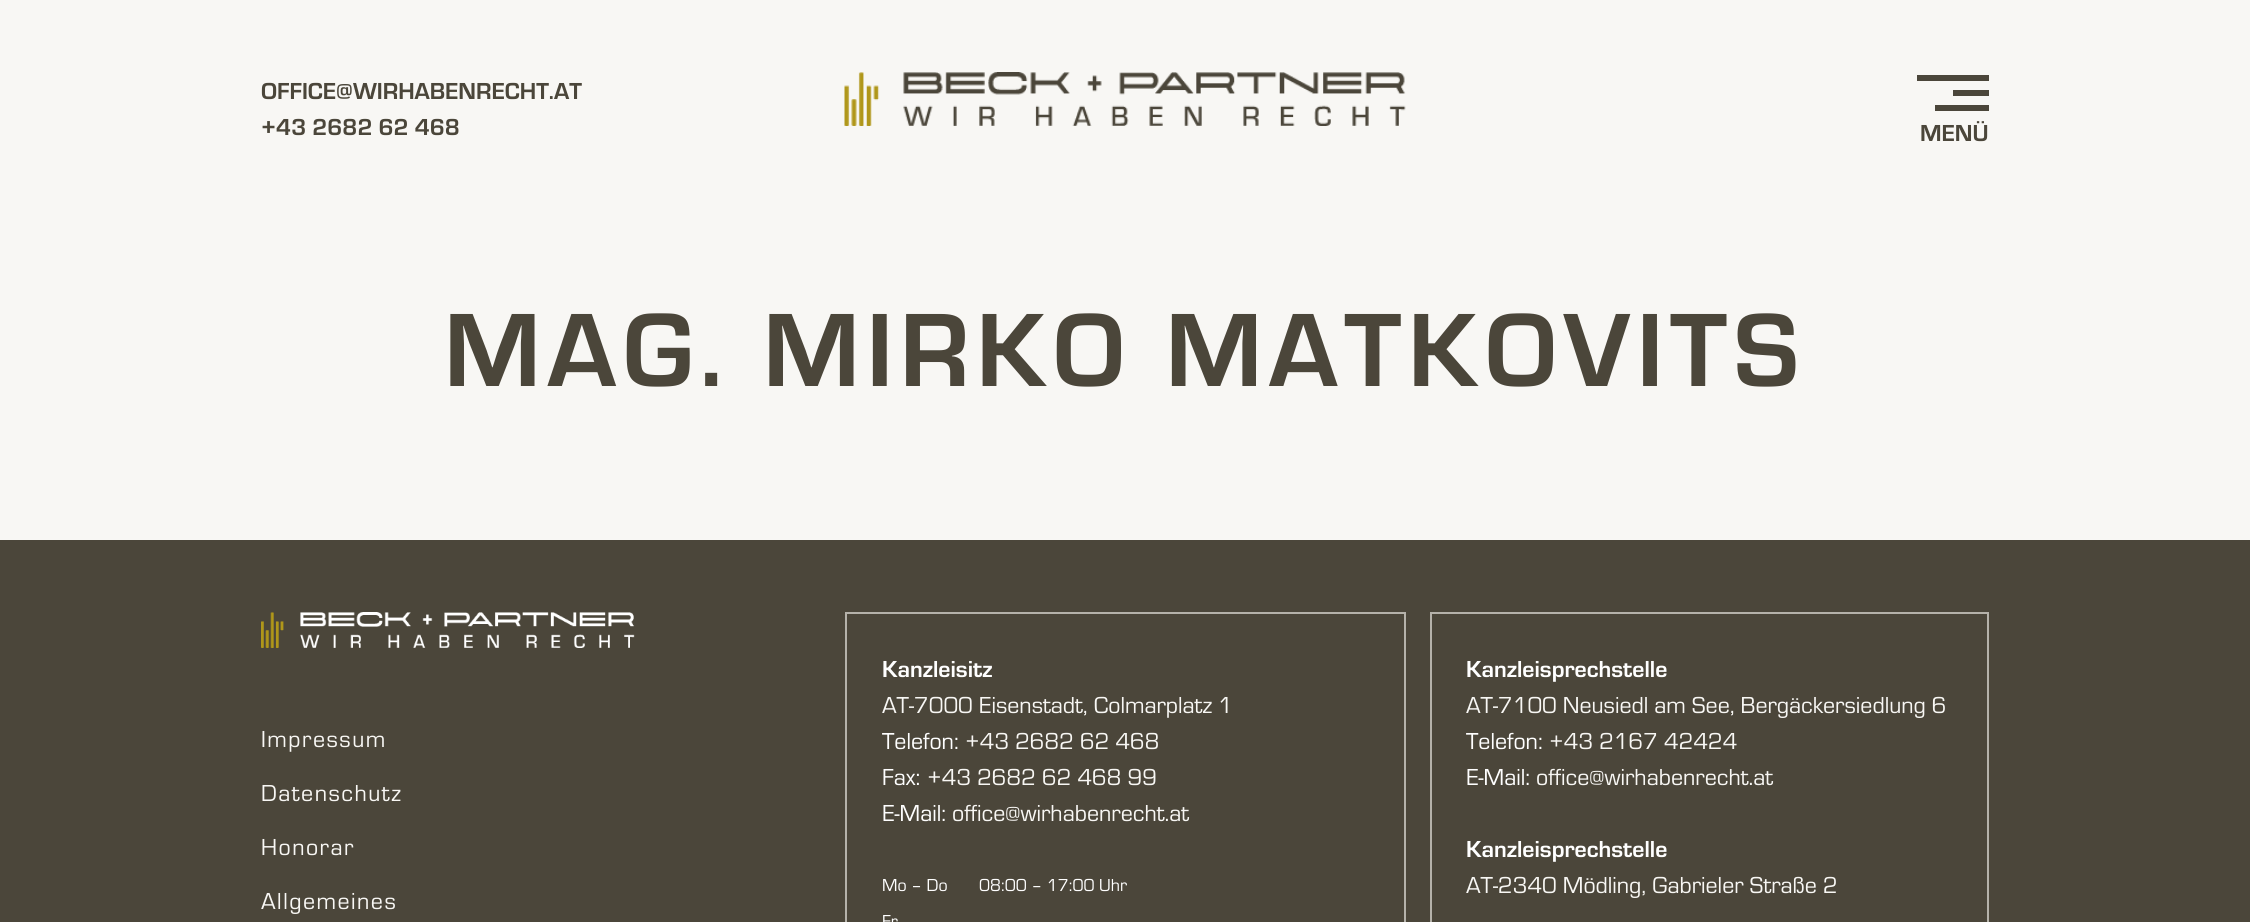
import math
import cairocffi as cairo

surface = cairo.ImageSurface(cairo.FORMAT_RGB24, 2250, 922)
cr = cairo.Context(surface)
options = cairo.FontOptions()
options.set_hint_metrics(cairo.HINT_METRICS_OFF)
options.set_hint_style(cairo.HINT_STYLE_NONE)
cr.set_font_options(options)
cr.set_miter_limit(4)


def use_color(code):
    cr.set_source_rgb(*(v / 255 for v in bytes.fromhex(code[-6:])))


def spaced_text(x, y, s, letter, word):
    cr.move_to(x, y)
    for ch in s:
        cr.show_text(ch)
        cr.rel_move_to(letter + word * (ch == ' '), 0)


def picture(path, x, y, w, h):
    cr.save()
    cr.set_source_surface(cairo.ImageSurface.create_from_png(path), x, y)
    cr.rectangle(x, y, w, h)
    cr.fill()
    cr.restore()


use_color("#f8f7f4")
cr.paint()
cr.select_font_face("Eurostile", cairo.FONT_SLANT_NORMAL, cairo.FONT_WEIGHT_BOLD)
cr.set_font_size(24)
use_color("#4b463a")
cr.move_to(261, 99)
cr.show_text("OFFICE@WIRHABENRECHT.AT")
cr.move_to(261, 135)
cr.show_text("+43 2682 62 468")
picture("img1.png", 844, 72, 562, 54)
cr.rectangle(1917, 75, 72, 6)
cr.fill()
cr.rectangle(1953, 90, 36, 6)
cr.fill()
cr.rectangle(1935, 105, 54, 6)
cr.fill()
cr.move_to(1920, 141)
cr.show_text("MENÜ")
cr.set_font_size(108)
spaced_text(444, 386, "MAG. MIRKO MATKOVITS", 6.75, 0)
cr.rectangle(0, 540, 2250, 382)
cr.fill()
picture("img2.png", 261, 612, 374, 36)
cr.select_font_face("Eurostile")
cr.set_font_size(24)
use_color("#f8f7f4")
spaced_text(261, 747, "Impressum", 1.5, 0)
spaced_text(261, 801, "Datenschutz", 1.5, 0)
spaced_text(261, 855, "Honorar", 1.5, 0)
spaced_text(261, 909, "Allgemeines", 1.5, 0)
cr.rectangle(846, 613, 559, 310)
use_color("#b5b2aa")
cr.stroke()
cr.select_font_face("Eurostile", cairo.FONT_SLANT_NORMAL, cairo.FONT_WEIGHT_BOLD)
use_color("#ffffff")
cr.move_to(882, 677)
cr.show_text("Kanzleisitz")
cr.select_font_face("Eurostile")
use_color("#f8f7f4")
cr.move_to(882, 713)
cr.show_text("AT-7000 Eisenstadt, Colmarplatz 1")
use_color("#ffffff")
cr.move_to(882, 749)
cr.show_text("Telefon:")
use_color("#f8f7f4")
cr.move_to(965, 749)
cr.show_text("+43 2682 62 468")
use_color("#ffffff")
cr.move_to(882, 785)
cr.show_text("Fax:")
use_color("#f8f7f4")
cr.move_to(927, 785)
cr.show_text("+43 2682 62 468 99")
use_color("#ffffff")
cr.move_to(882, 821)
cr.show_text("E-Mail:")
use_color("#f8f7f4")
cr.move_to(952, 821)
cr.show_text("office@wirhabenrecht.at")
cr.set_font_size(18)
use_color("#ffffff")
cr.move_to(882, 891)
cr.show_text("Mo – Do")
cr.move_to(979, 891)
cr.show_text("08:00 – 17:00 Uhr")
cr.move_to(882, 927)
cr.show_text("Fr")
cr.rectangle(1431, 613, 557, 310)
use_color("#b5b2aa")
cr.stroke()
cr.select_font_face("Eurostile", cairo.FONT_SLANT_NORMAL, cairo.FONT_WEIGHT_BOLD)
cr.set_font_size(24)
use_color("#ffffff")
cr.move_to(1466, 677)
cr.show_text("Kanzleisprechstelle")
cr.select_font_face("Eurostile")
use_color("#f8f7f4")
cr.move_to(1466, 713)
cr.show_text("AT-7100 Neusiedl am See, Bergäckersiedlung 6")
use_color("#ffffff")
cr.move_to(1466, 749)
cr.show_text("Telefon:")
use_color("#f8f7f4")
cr.move_to(1549, 749)
cr.show_text("+43 2167 42424")
use_color("#ffffff")
cr.move_to(1466, 785)
cr.show_text("E-Mail:")
use_color("#f8f7f4")
cr.move_to(1536, 785)
cr.show_text("office@wirhabenrecht.at")
cr.select_font_face("Eurostile", cairo.FONT_SLANT_NORMAL, cairo.FONT_WEIGHT_BOLD)
use_color("#ffffff")
cr.move_to(1466, 857)
cr.show_text("Kanzleisprechstelle")
cr.select_font_face("Eurostile")
use_color("#f8f7f4")
cr.move_to(1466, 893)
cr.show_text("AT-2340 Mödling, Gabrieler Straße 2")
surface.write_to_png("result.png")
